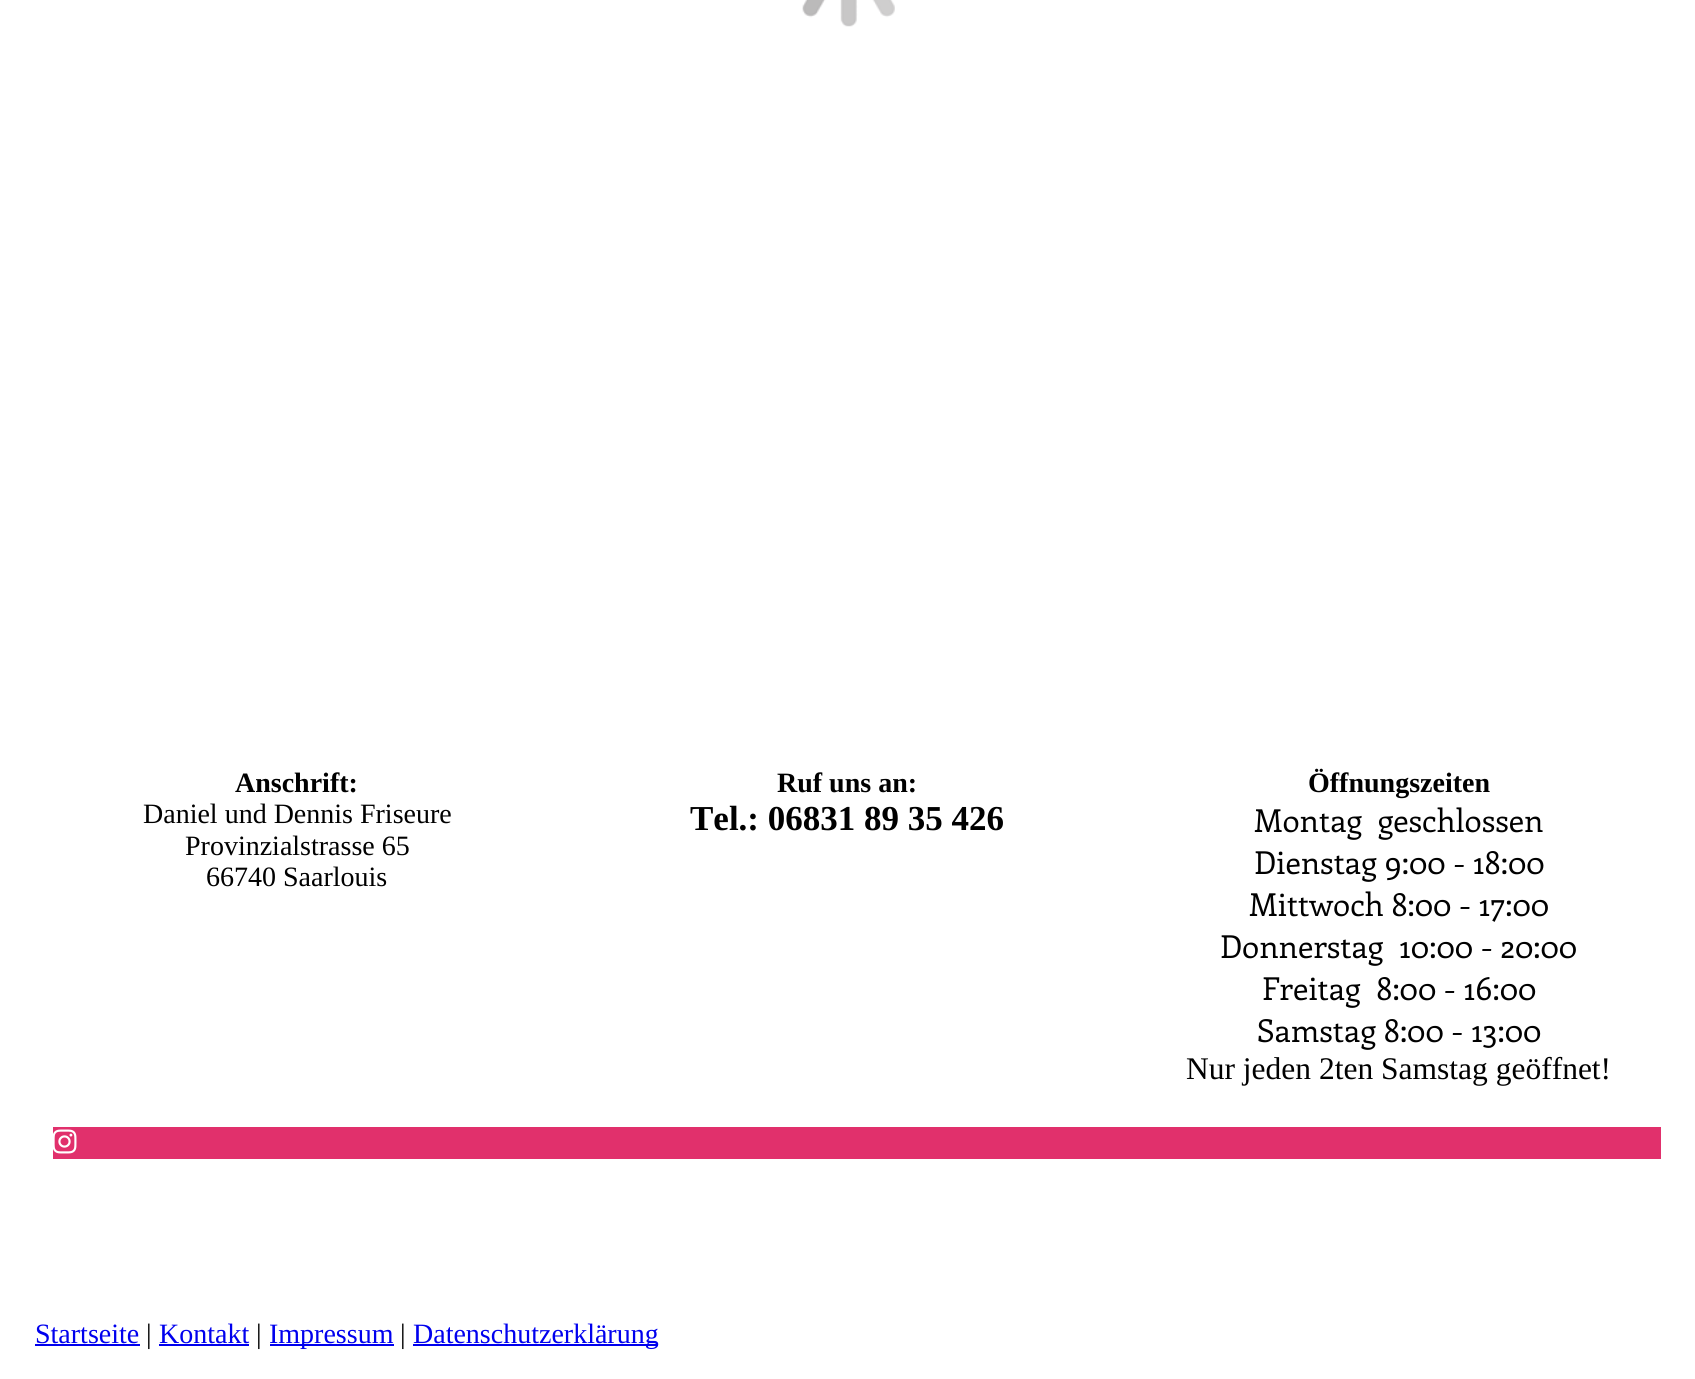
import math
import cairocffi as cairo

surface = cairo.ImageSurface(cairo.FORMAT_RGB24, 1695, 1379)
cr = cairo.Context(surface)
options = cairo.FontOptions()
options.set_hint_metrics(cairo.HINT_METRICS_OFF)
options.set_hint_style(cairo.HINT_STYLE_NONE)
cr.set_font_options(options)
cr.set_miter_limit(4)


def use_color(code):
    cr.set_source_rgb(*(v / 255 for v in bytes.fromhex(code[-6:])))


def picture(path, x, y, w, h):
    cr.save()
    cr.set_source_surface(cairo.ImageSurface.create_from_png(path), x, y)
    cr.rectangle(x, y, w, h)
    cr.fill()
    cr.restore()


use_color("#ffffff")
cr.paint()
picture("img1.png", 802, 0, 93, 27)
cr.select_font_face("Liberation Serif", cairo.FONT_SLANT_NORMAL, cairo.FONT_WEIGHT_BOLD)
cr.set_font_size(28)
use_color("#000000")
cr.move_to(235, 792)
cr.show_text("Anschrift:")
cr.select_font_face("Liberation Serif")
cr.move_to(143, 823)
cr.show_text("Daniel und Dennis Friseure")
cr.move_to(185, 855)
cr.show_text("Provinzialstrasse 65")
cr.move_to(206, 886)
cr.show_text("66740 Saarlouis")
cr.select_font_face("Liberation Serif", cairo.FONT_SLANT_NORMAL, cairo.FONT_WEIGHT_BOLD)
cr.move_to(777, 792)
cr.show_text("Ruf uns an:")
cr.set_font_size(35)
cr.move_to(690, 830)
cr.show_text("Tel.: 06831 89 35 426")
cr.set_font_size(28)
cr.move_to(1308, 792)
cr.show_text("Öffnungszeiten")
cr.select_font_face("Enriqueta")
cr.set_font_size(31.5)
cr.move_to(1254, 832)
cr.show_text("Montag  geschlossen")
cr.move_to(1254, 874)
cr.show_text("Dienstag 9:00 - 18:00")
cr.move_to(1249, 916)
cr.show_text("Mittwoch 8:00 - 17:00")
cr.move_to(1220, 958)
cr.show_text("Donnerstag  10:00 - 20:00")
cr.move_to(1262, 1000)
cr.show_text("Freitag  8:00 - 16:00")
cr.move_to(1257, 1042)
cr.show_text("Samstag 8:00 - 13:00")
cr.select_font_face("Liberation Serif")
cr.move_to(1186, 1079)
cr.show_text("Nur jeden 2ten Samstag geöffnet!")
use_color("#e1306c")
cr.rectangle(53, 1127, 1608, 32)
cr.fill()
picture("img2.png", 53, 1129, 24, 25)
cr.set_font_size(28)
use_color("#0000ee")
cr.move_to(35, 1343)
cr.show_text("Startseite")
cr.rectangle(35, 1344, 105, 2)
cr.fill()
use_color("#000000")
cr.move_to(146, 1343)
cr.show_text("|")
use_color("#0000ee")
cr.move_to(159, 1343)
cr.show_text("Kontakt")
cr.rectangle(159, 1344, 90, 2)
cr.fill()
use_color("#000000")
cr.move_to(256, 1343)
cr.show_text("|")
use_color("#0000ee")
cr.rectangle(270, 1344, 124, 2)
cr.fill()
cr.move_to(269, 1343)
cr.show_text("Impressum")
use_color("#000000")
cr.move_to(400, 1343)
cr.show_text("|")
use_color("#0000ee")
cr.rectangle(413, 1344, 245, 2)
cr.fill()
cr.move_to(413, 1343)
cr.show_text("Datenschutzerklärung")
surface.write_to_png("result.png")
